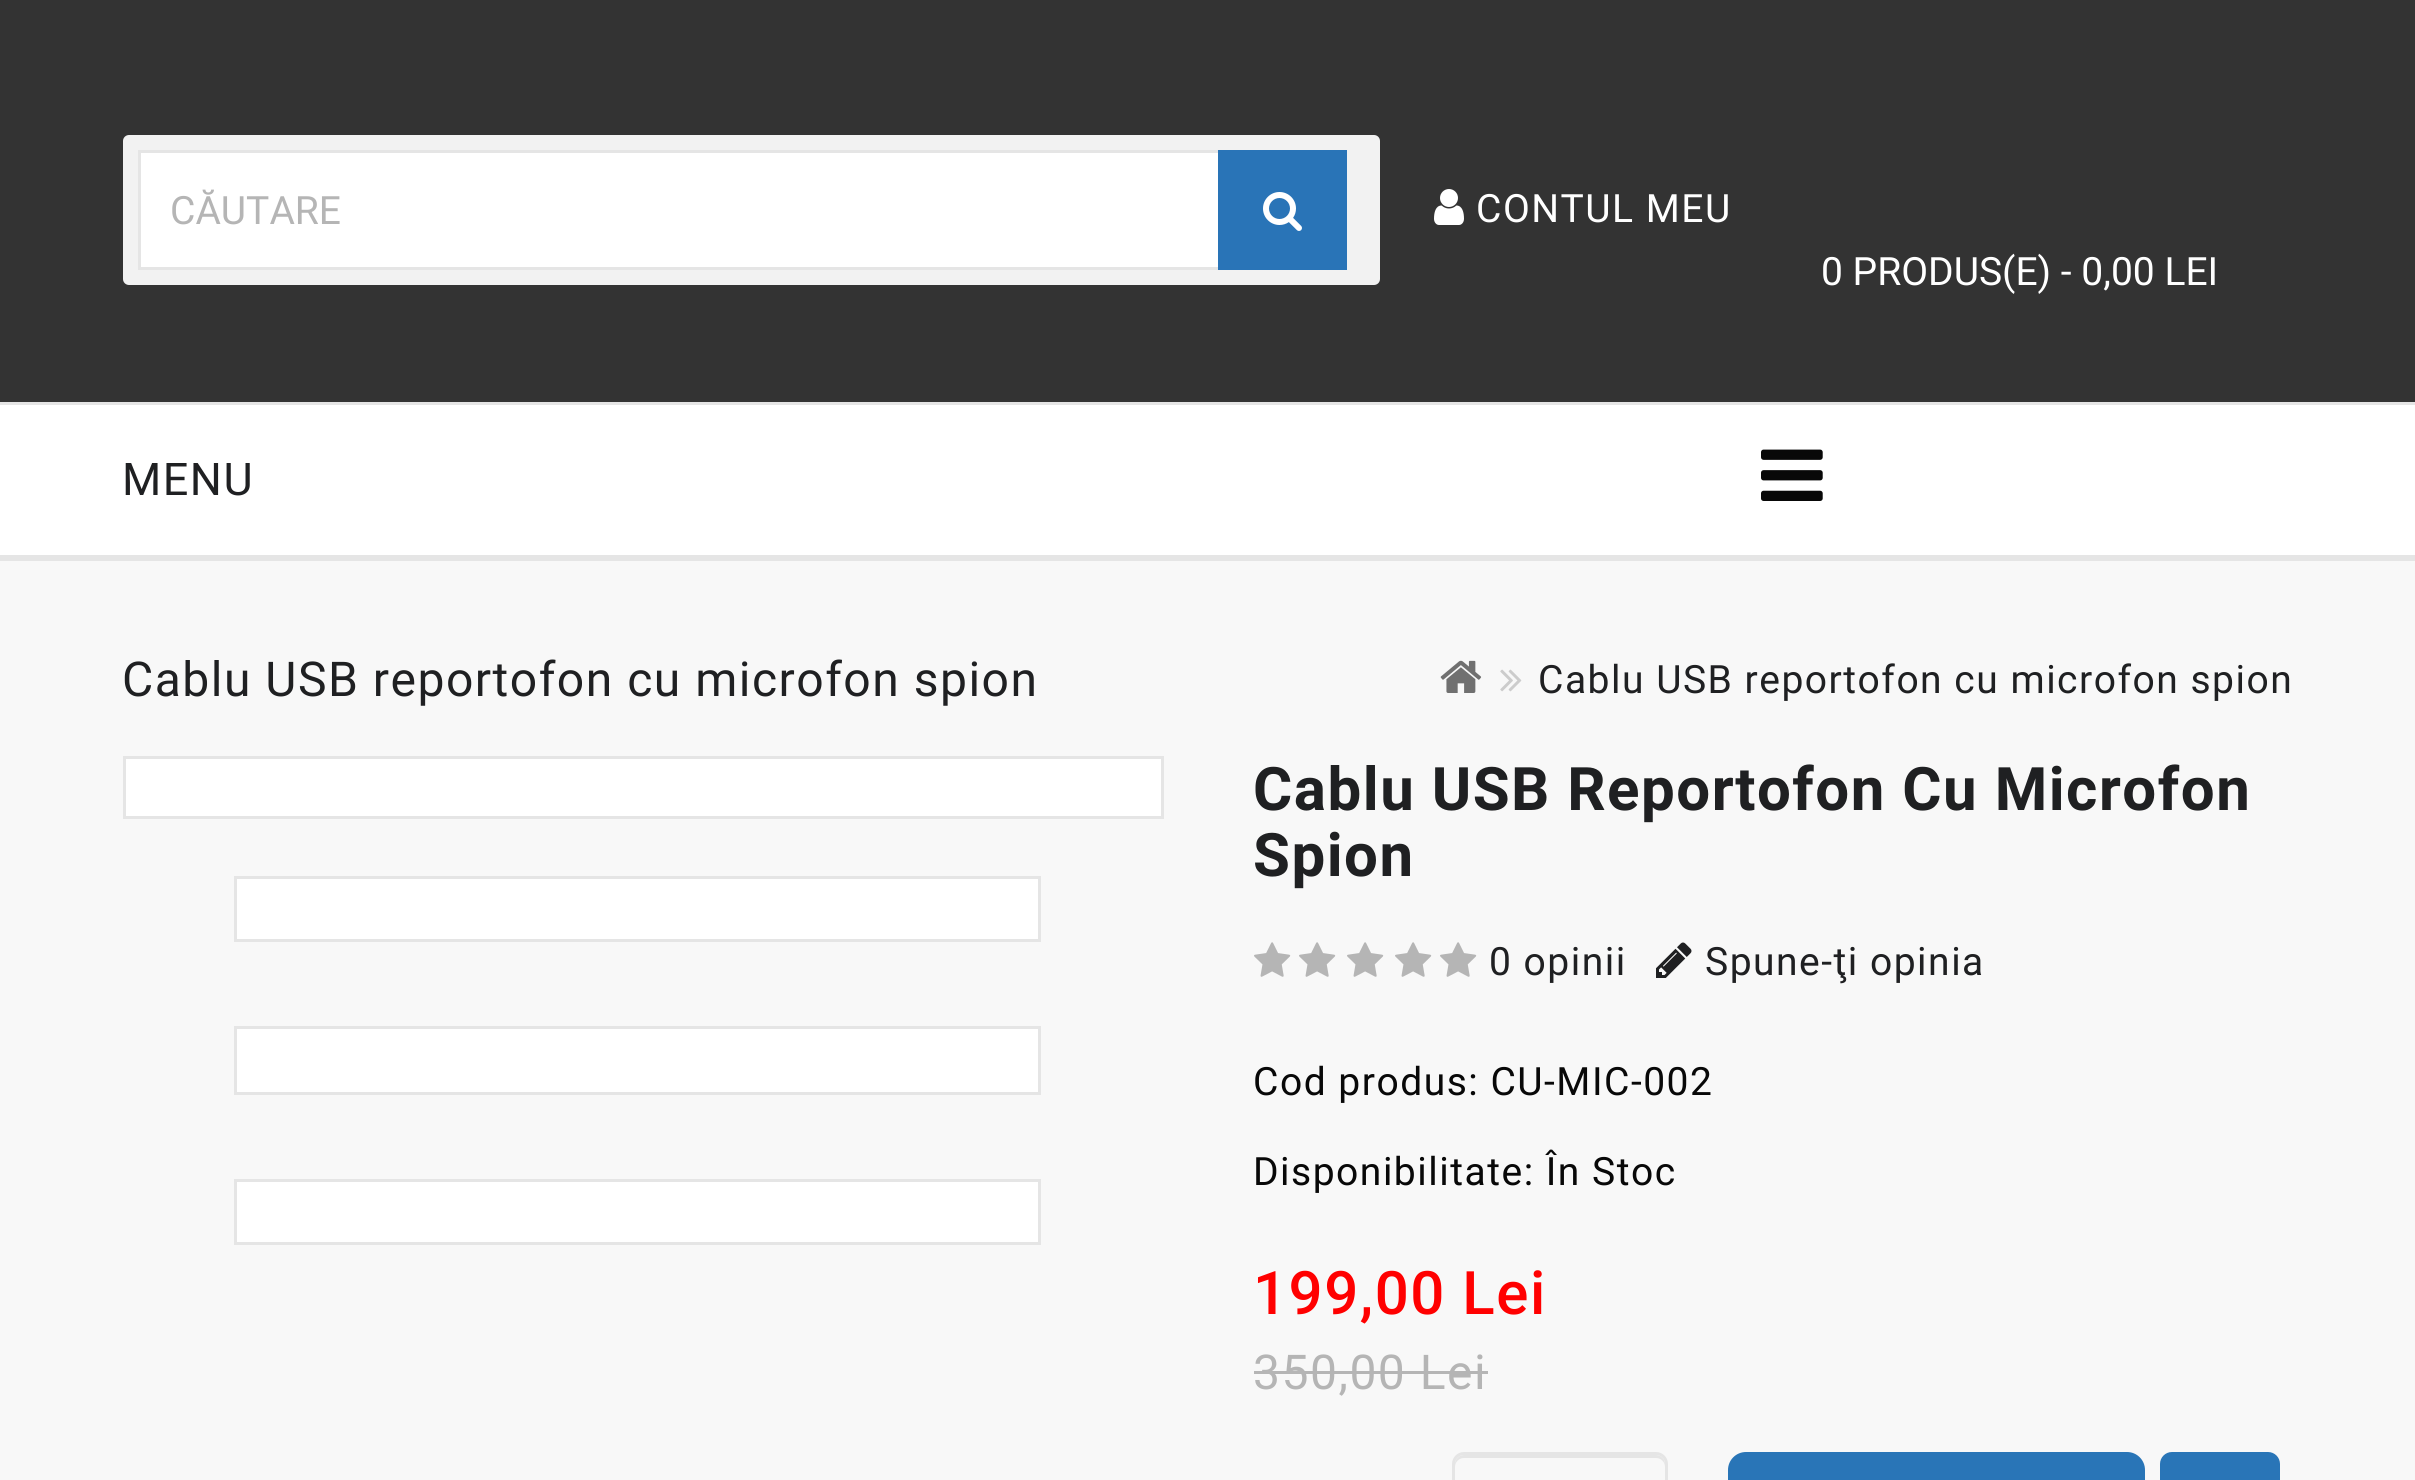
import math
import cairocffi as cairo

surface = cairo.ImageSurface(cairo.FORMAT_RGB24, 2415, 1480)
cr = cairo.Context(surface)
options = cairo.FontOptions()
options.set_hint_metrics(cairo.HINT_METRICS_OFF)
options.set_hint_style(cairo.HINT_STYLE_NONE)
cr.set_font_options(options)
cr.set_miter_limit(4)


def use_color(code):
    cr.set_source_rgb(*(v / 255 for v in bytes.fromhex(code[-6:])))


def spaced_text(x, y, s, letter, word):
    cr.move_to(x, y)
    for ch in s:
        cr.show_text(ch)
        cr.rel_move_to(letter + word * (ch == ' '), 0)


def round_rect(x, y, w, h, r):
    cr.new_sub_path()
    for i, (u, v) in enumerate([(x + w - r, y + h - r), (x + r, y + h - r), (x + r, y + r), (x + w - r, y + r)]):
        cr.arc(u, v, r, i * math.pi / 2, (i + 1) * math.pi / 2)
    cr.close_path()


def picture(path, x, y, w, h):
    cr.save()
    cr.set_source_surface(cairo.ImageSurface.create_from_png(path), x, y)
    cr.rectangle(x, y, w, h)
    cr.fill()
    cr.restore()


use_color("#f8f8f8")
cr.paint()
use_color("#333333")
cr.rectangle(0, 0, 2415, 402)
cr.fill()
use_color("#f2f2f2")
round_rect(123, 135, 1257, 150, 6)
cr.fill()
use_color("#ffffff")
cr.rectangle(141, 153, 1077, 114)
cr.fill()
use_color("#e5e5e5")
cr.rectangle(138, 150, 1080, 3)
cr.fill()
cr.rectangle(138, 267, 1080, 3)
cr.fill()
cr.rectangle(138, 150, 3, 120)
cr.fill()
cr.select_font_face("Roboto")
cr.set_font_size(39)
use_color("#b5b5b5")
cr.move_to(170, 224)
cr.show_text("CĂUTARE")
use_color("#2974b7")
cr.rectangle(1218, 150, 129, 120)
cr.fill()
picture("img1.png", 1263, 192, 39, 39)
picture("img2.png", 1434, 189, 30, 36)
use_color("#ffffff")
spaced_text(1476, 222, "CONTUL MEU", 1.5, 0)
cr.move_to(1821, 285)
cr.show_text("0 PRODUS(E) - 0,00 LEI")
cr.rectangle(0, 405, 2415, 150)
cr.fill()
use_color("#e5e5e5")
cr.rectangle(0, 402, 2415, 3)
cr.fill()
cr.rectangle(0, 555, 2415, 6)
cr.fill()
cr.set_font_size(45)
use_color("#1f2022")
spaced_text(122, 495, "MENU", 1.5, 0)
picture("img3.png", 1761, 449, 62, 52)
cr.set_font_size(48)
spaced_text(122, 696, "Cablu USB reportofon cu microfon spion", 1.5, 0)
picture("img4.png", 1440, 660, 42, 33)
picture("img5.png", 1500, 669, 22, 23)
cr.set_font_size(39)
spaced_text(1538, 693, "Cablu USB reportofon cu microfon spion", 1.5, 0)
use_color("#ffffff")
cr.rectangle(124.5, 757.5, 1038, 60)
cr.fill_preserve()
use_color("#e5e5e5")
cr.set_line_width(3)
cr.stroke()
use_color("#ffffff")
cr.rectangle(235.5, 877.5, 804, 63)
cr.fill_preserve()
use_color("#e5e5e5")
cr.stroke()
use_color("#ffffff")
cr.rectangle(235.5, 1027.5, 804, 66)
cr.fill_preserve()
use_color("#e5e5e5")
cr.stroke()
use_color("#ffffff")
cr.rectangle(235.5, 1180.5, 804, 63)
cr.fill_preserve()
use_color("#e5e5e5")
cr.stroke()
cr.select_font_face("Roboto", cairo.FONT_SLANT_NORMAL, cairo.FONT_WEIGHT_BOLD)
cr.set_font_size(60)
use_color("#1f2022")
spaced_text(1253, 810, "Cablu USB Reportofon Cu Microfon", 1.5, 0)
spaced_text(1253, 876, "Spion", 1.5, 0)
picture("img6.png", 1254, 942, 37, 35)
picture("img6.png", 1299, 942, 37, 35)
picture("img6.png", 1347, 942, 37, 35)
picture("img6.png", 1395, 942, 37, 35)
picture("img6.png", 1440, 942, 37, 35)
cr.select_font_face("Roboto")
cr.set_font_size(39)
spaced_text(1489, 975, "0 opinii", 1.5, 0)
picture("img7.png", 1656, 942, 36, 36)
spaced_text(1705, 975, "Spune-ţi opinia", 1.5, 0)
use_color("#080808")
spaced_text(1253, 1095, "Cod produs: CU-MIC-002", 1.5, 0)
spaced_text(1253, 1185, "Disponibilitate: În Stoc", 1.5, 0)
cr.select_font_face("Roboto Medium")
cr.set_font_size(60)
use_color("#ff0000")
spaced_text(1253, 1314, "199,00 Lei", 1.5, 0)
cr.select_font_face("Roboto")
cr.set_font_size(48)
use_color("#b5b5b5")
spaced_text(1253, 1389, "350,00 Lei", 1.5, 0)
cr.rectangle(1254, 1371, 234, 3)
cr.fill()
use_color("#e5e5e5")
cr.new_path()
cr.move_to(1464, 1458)
cr.line_to(1656, 1458)
cr.curve_to(1661, 1458, 1665, 1462, 1665, 1467)
cr.line_to(1665, 1464)
cr.curve_to(1665, 1459, 1661, 1455, 1656, 1455)
cr.line_to(1464, 1455)
cr.curve_to(1459, 1455, 1455, 1459, 1455, 1464)
cr.line_to(1455, 1467)
cr.curve_to(1455, 1462, 1459, 1458, 1464, 1458)
cr.close_path()
cr.fill()
round_rect(1453.5, 1453.5, 213, 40, 10.5)
cr.stroke()
use_color("#2975b7")
round_rect(1729.5, 1453.5, 414, 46, 16.5)
cr.fill_preserve()
cr.stroke()
round_rect(2161.5, 1453.5, 117, 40, 10.5)
cr.fill_preserve()
cr.stroke()
surface.write_to_png("result.png")
